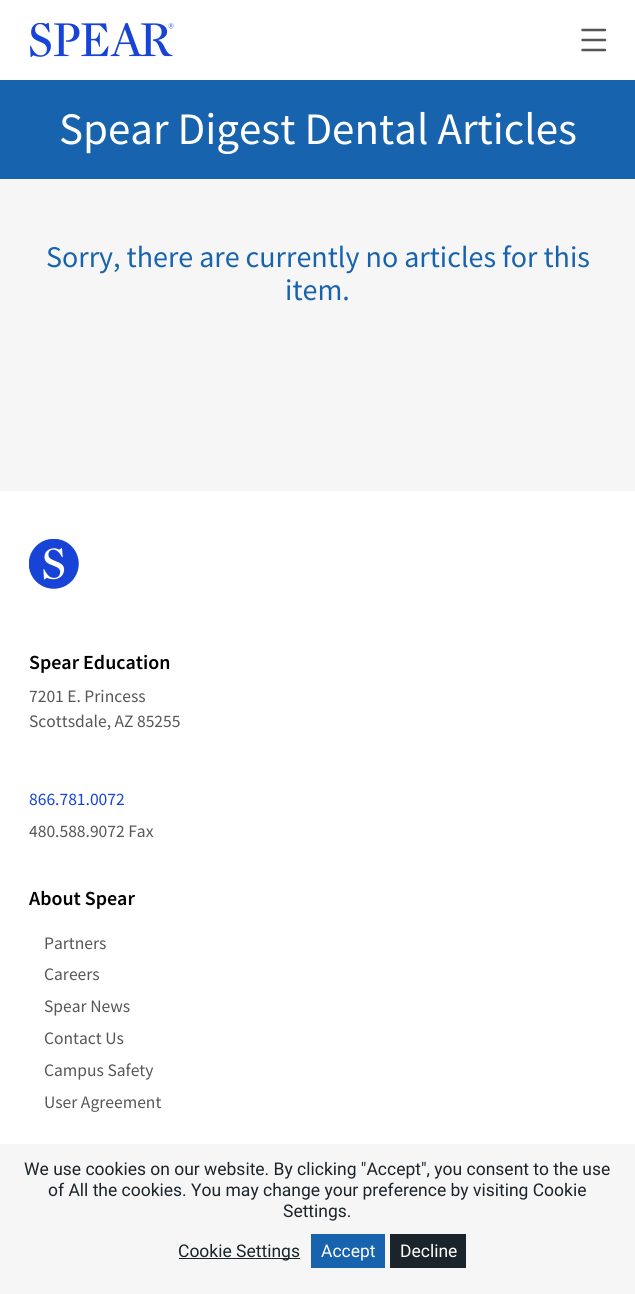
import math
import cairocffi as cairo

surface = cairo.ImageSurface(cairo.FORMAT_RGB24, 635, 1294)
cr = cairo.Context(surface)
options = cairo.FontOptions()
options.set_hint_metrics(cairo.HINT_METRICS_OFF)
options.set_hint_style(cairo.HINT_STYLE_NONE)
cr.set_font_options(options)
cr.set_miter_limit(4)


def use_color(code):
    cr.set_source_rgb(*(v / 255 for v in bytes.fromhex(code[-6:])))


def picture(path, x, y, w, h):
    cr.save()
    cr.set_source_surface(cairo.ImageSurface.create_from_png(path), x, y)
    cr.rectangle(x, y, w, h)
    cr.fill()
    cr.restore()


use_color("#ffffff")
cr.paint()
picture("img1.png", 30, 23, 144, 34)
picture("img2.png", 581, 28, 26, 24)
use_color("#1863ad")
cr.rectangle(0, 80, 635, 99)
cr.fill()
cr.select_font_face("Source Sans Pro")
cr.set_font_size(45)
use_color("#ffffff")
cr.move_to(59, 144)
cr.show_text("Spear Digest Dental Articles")
use_color("#f6f6f6")
cr.rectangle(0, 179, 635, 312)
cr.fill()
cr.set_font_size(30)
use_color("#1863ad")
cr.move_to(46, 267)
cr.show_text("Sorry, there are currently no articles for this")
cr.move_to(285, 300)
cr.show_text("item.")
picture("img3.png", 29, 539, 50, 50)
cr.select_font_face("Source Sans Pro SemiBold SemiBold")
cr.set_font_size(20)
use_color("#000000")
cr.move_to(29, 669)
cr.show_text("Spear Education")
cr.select_font_face("Source Sans Pro")
cr.set_font_size(17.5)
use_color("#565656")
cr.move_to(29, 702)
cr.show_text("7201 E. Princess")
cr.move_to(29, 727)
cr.show_text("Scottsdale, AZ 85255")
use_color("#1743d7")
cr.move_to(29, 805)
cr.show_text("866.781.0072")
use_color("#565656")
cr.move_to(29, 837)
cr.show_text("480.588.9072 Fax")
cr.select_font_face("Source Sans Pro SemiBold SemiBold")
cr.set_font_size(20)
use_color("#000000")
cr.move_to(29, 905)
cr.show_text("About Spear")
cr.select_font_face("Source Sans Pro")
cr.set_font_size(17.5)
use_color("#565656")
cr.move_to(44, 949)
cr.show_text("Partners")
cr.move_to(44, 980)
cr.show_text("Careers")
cr.move_to(44, 1012)
cr.show_text("Spear News")
cr.move_to(44, 1044)
cr.show_text("Contact Us")
cr.move_to(44, 1076)
cr.show_text("Campus Safety")
cr.move_to(44, 1108)
cr.show_text("User Agreement")
use_color("#f6f6f6")
cr.rectangle(0, 1144, 635, 150)
cr.fill()
cr.select_font_face("Roboto")
use_color("#1b242a")
cr.move_to(24, 1175)
cr.show_text("We use cookies on our website. By clicking \"Accept\", you consent to the use")
cr.move_to(48, 1196)
cr.show_text("of All the cookies. You may change your preference by visiting Cookie")
cr.move_to(283, 1217)
cr.show_text("Settings.")
cr.rectangle(179, 1258, 121, 1)
cr.fill()
cr.move_to(178, 1257)
cr.show_text("Cookie Settings")
use_color("#1863ad")
cr.rectangle(311, 1234, 74, 34)
cr.fill()
use_color("#ffffff")
cr.move_to(321, 1257)
cr.show_text("Accept")
use_color("#1b242a")
cr.rectangle(390, 1234, 76, 34)
cr.fill()
use_color("#ffffff")
cr.move_to(400, 1257)
cr.show_text("Decline")
surface.write_to_png("result.png")
